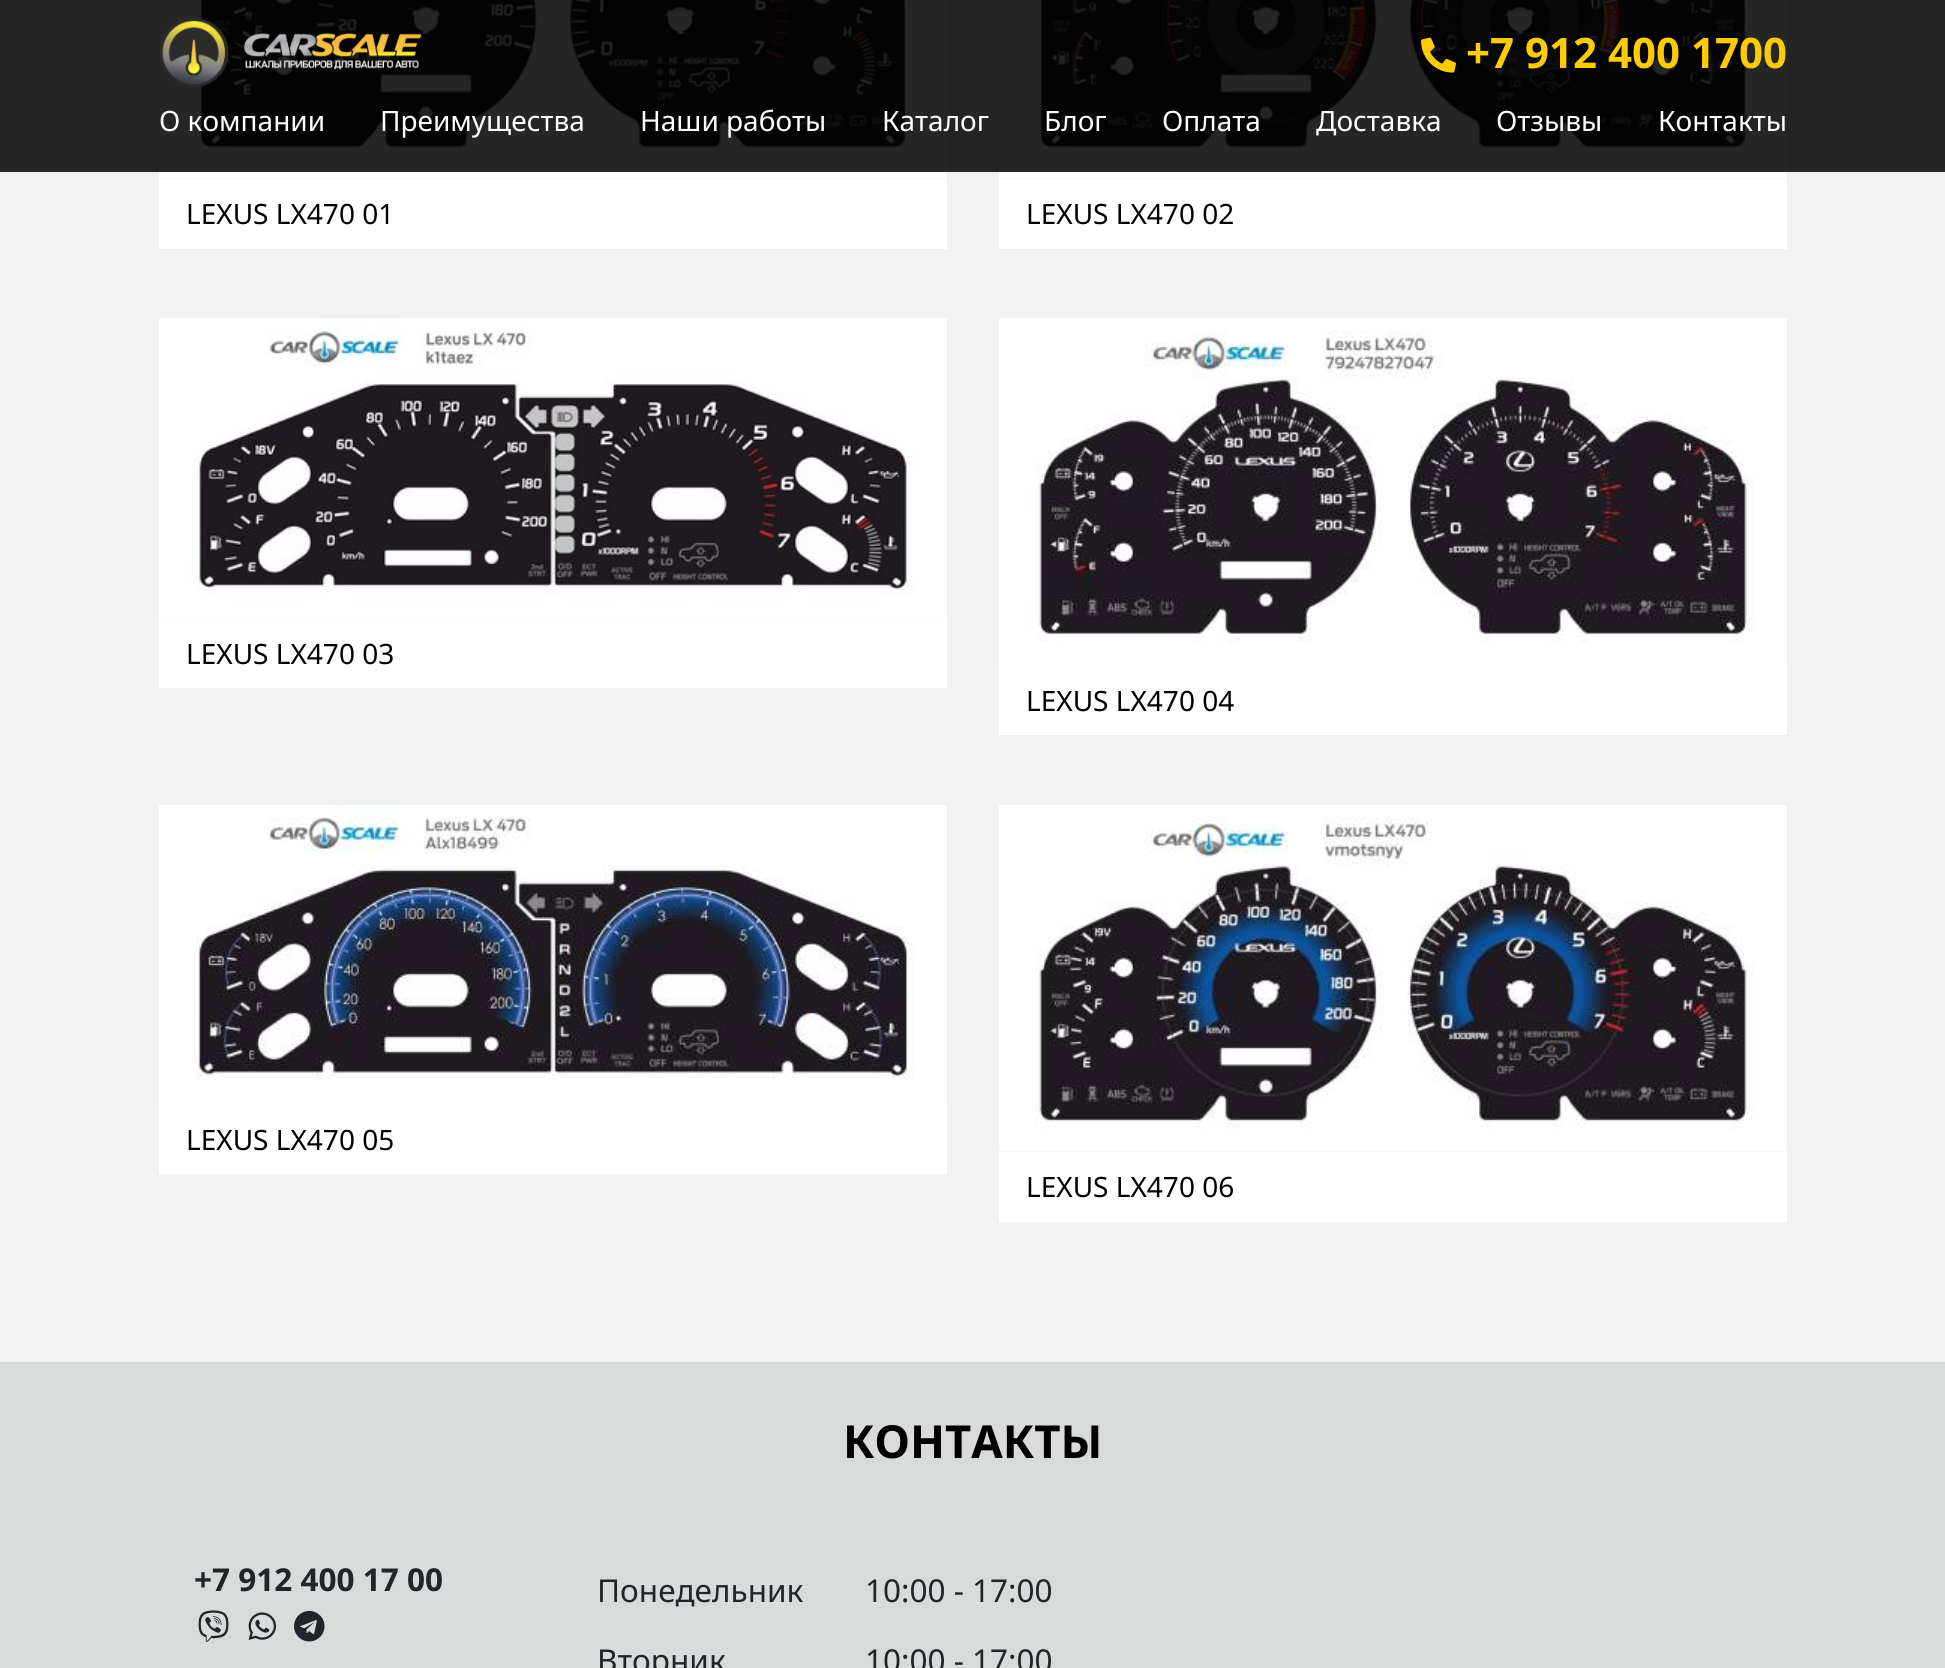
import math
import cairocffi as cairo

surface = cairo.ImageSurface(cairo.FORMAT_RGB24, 1945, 1668)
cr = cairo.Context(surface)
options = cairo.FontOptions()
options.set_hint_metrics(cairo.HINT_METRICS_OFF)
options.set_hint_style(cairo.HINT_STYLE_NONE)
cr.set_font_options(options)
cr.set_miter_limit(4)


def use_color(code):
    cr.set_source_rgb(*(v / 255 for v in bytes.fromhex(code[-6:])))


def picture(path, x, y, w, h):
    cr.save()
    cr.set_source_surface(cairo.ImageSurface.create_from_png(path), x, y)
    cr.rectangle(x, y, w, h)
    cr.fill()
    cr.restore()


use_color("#f1f1f1")
cr.paint()
use_color("#242424")
cr.rectangle(0, 0, 1945, 172)
cr.fill()
picture("img3.png", 159, 0, 788, 179)
picture("img1.png", 160, 18, 262, 69)
picture("img4.png", 999, 0, 788, 179)
picture("img2.png", 1421, 37, 35, 36)
cr.select_font_face("Noto Sans", cairo.FONT_SLANT_NORMAL, cairo.FONT_WEIGHT_BOLD)
cr.set_font_size(42)
use_color("#ffcc03")
cr.move_to(1466, 68)
cr.show_text("+7 912 400 1700")
cr.select_font_face("Noto Sans")
cr.set_font_size(28)
use_color("#ffffff")
cr.move_to(159, 131)
cr.show_text("О компании")
cr.move_to(380, 131)
cr.show_text("Преимущества")
cr.move_to(640, 131)
cr.show_text("Наши работы")
cr.move_to(882, 131)
cr.show_text("Каталог")
cr.move_to(1044, 131)
cr.show_text("Блог")
cr.move_to(1162, 131)
cr.show_text("Оплата")
cr.move_to(1316, 131)
cr.show_text("Доставка")
cr.move_to(1496, 131)
cr.show_text("Отзывы")
cr.move_to(1658, 131)
cr.show_text("Контакты")
cr.rectangle(159, 179, 788, 70)
cr.fill()
use_color("#000000")
cr.move_to(186, 224)
cr.show_text("LEXUS LX470 01")
use_color("#ffffff")
cr.rectangle(999, 179, 788, 70)
cr.fill()
use_color("#000000")
cr.move_to(1026, 224)
cr.show_text("LEXUS LX470 02")
picture("img5.png", 159, 318, 788, 300)
use_color("#ffffff")
cr.rectangle(159, 618, 788, 70)
cr.fill()
use_color("#000000")
cr.move_to(186, 664)
cr.show_text("LEXUS LX470 03")
picture("img6.png", 999, 318, 788, 347)
use_color("#ffffff")
cr.rectangle(999, 665, 788, 70)
cr.fill()
use_color("#000000")
cr.move_to(1026, 711)
cr.show_text("LEXUS LX470 04")
picture("img7.png", 159, 805, 788, 299)
use_color("#ffffff")
cr.rectangle(159, 1104, 788, 70)
cr.fill()
use_color("#000000")
cr.move_to(186, 1150)
cr.show_text("LEXUS LX470 05")
picture("img8.png", 999, 805, 788, 347)
use_color("#ffffff")
cr.rectangle(999, 1152, 788, 70)
cr.fill()
use_color("#000000")
cr.move_to(1026, 1197)
cr.show_text("LEXUS LX470 06")
use_color("#d9dbda")
cr.rectangle(0, 1362, 1945, 306)
cr.fill()
cr.select_font_face("Noto Sans", cairo.FONT_SLANT_NORMAL, cairo.FONT_WEIGHT_BOLD)
cr.set_font_size(45.5)
use_color("#000000")
cr.move_to(843, 1458)
cr.show_text("КОНТАКТЫ")
cr.set_font_size(31.5)
use_color("#212529")
cr.move_to(194, 1591)
cr.show_text("+7 912 400 17 00")
picture("img9.png", 198, 1610, 31, 32)
picture("img10.png", 248, 1612, 29, 28)
picture("img11.png", 294, 1610, 31, 32)
cr.select_font_face("Noto Sans")
cr.move_to(597, 1602)
cr.show_text("Понедельник")
cr.move_to(597, 1672)
cr.show_text("Вторник")
cr.move_to(865, 1602)
cr.show_text("10:00 - 17:00")
cr.move_to(865, 1672)
cr.show_text("10:00 - 17:00")
surface.write_to_png("result.png")
